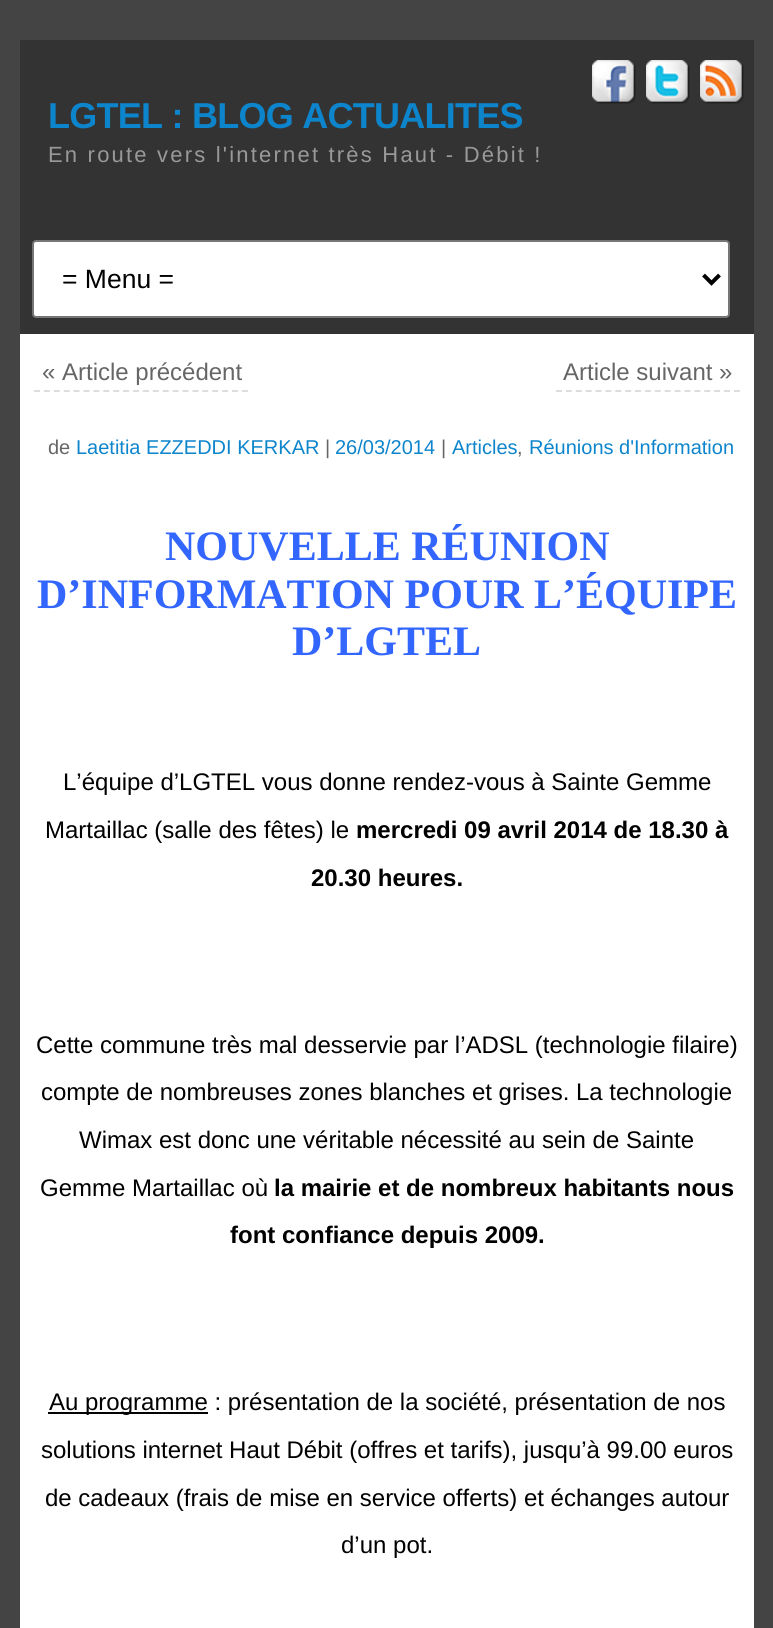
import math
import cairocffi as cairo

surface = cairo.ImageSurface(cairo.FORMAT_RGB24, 773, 1628)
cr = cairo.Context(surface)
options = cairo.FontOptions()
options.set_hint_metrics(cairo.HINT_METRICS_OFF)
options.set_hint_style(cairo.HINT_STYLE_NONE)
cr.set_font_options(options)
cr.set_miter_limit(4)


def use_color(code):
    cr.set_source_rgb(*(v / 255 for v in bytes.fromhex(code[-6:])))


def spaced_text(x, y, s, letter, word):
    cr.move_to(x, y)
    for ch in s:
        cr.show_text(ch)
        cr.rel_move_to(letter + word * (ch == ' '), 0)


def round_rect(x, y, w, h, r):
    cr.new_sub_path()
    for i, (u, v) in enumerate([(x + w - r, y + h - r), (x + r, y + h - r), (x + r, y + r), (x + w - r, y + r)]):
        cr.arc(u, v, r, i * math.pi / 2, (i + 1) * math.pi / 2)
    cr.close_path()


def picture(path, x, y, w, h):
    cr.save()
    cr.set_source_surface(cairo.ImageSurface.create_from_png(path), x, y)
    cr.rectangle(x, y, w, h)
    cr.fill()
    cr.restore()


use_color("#444444")
cr.paint()
use_color("#333333")
cr.rectangle(20, 40, 734, 294)
cr.fill()
picture("img1.png", 592, 60, 44, 44)
picture("img2.png", 646, 60, 44, 44)
picture("img3.png", 700, 60, 44, 44)
cr.select_font_face("Liberation Sans", cairo.FONT_SLANT_NORMAL, cairo.FONT_WEIGHT_BOLD)
cr.set_font_size(36)
use_color("#0d85cc")
spaced_text(48, 128, "LGTEL : BLOG ACTUALITES", -0.75, 0)
cr.select_font_face("Liberation Sans")
cr.set_font_size(22)
use_color("#999999")
spaced_text(48, 162, "En route vers l'internet très Haut - Débit !", 2.2, 0)
use_color("#ffffff")
round_rect(33, 241, 696, 76, 3)
cr.fill_preserve()
use_color("#767676")
cr.stroke()
cr.new_path()
cr.move_to(703.5, 275)
cr.line_to(711.5, 283)
cr.line_to(719.5, 275)
use_color("#000000")
cr.set_line_width(4)
cr.stroke()
cr.set_font_size(26.5)
cr.move_to(62, 288)
cr.show_text("= Menu =")
use_color("#ffffff")
cr.rectangle(20, 334, 734, 1294)
cr.fill()
cr.new_path()
cr.move_to(34, 391)
cr.line_to(248, 391)
use_color("#dddddd")
cr.set_line_width(2)
cr.set_dash([6, 3.9])
cr.stroke()
cr.set_font_size(24)
use_color("#666666")
cr.move_to(42, 380)
cr.show_text("« Article précédent")
cr.new_path()
cr.move_to(556, 391)
cr.line_to(740, 391)
use_color("#dddddd")
cr.set_dash([6, 3.88])
cr.stroke()
use_color("#666666")
cr.move_to(563, 380)
cr.show_text("Article suivant »")
cr.set_font_size(20)
cr.move_to(48, 454)
cr.show_text("de")
use_color("#0d85cc")
cr.move_to(76, 454)
cr.show_text("Laetitia EZZEDDI KERKAR")
use_color("#666666")
cr.move_to(325, 454)
cr.show_text("|")
use_color("#0d85cc")
cr.move_to(335, 454)
cr.show_text("26/03/2014")
use_color("#666666")
cr.move_to(441, 454)
cr.show_text("|")
use_color("#0d85cc")
cr.move_to(452, 454)
cr.show_text("Articles")
use_color("#666666")
cr.move_to(517, 454)
cr.show_text(",")
use_color("#0d85cc")
cr.move_to(529, 454)
cr.show_text("Réunions d'Information")
cr.select_font_face("Liberation Serif", cairo.FONT_SLANT_NORMAL, cairo.FONT_WEIGHT_BOLD)
cr.set_font_size(42)
use_color("#3366ff")
cr.move_to(165, 560)
cr.show_text("NOUVELLE RÉUNION")
cr.move_to(37, 608)
cr.show_text("D’INFORMATION POUR L’ÉQUIPE")
cr.move_to(292, 655)
cr.show_text("D’LGTEL")
cr.select_font_face("Liberation Sans")
cr.set_font_size(24)
use_color("#000000")
cr.move_to(63, 790)
cr.show_text("L’équipe d’LGTEL vous donne rendez-vous à Sainte Gemme")
cr.move_to(45, 838)
cr.show_text("Martaillac (salle des fêtes) le")
cr.select_font_face("Liberation Sans", cairo.FONT_SLANT_NORMAL, cairo.FONT_WEIGHT_BOLD)
cr.move_to(356, 838)
cr.show_text("mercredi 09 avril 2014 de 18.30 à")
cr.move_to(311, 886)
cr.show_text("20.30 heures.")
cr.select_font_face("Liberation Sans")
cr.move_to(36, 1053)
cr.show_text("Cette commune très mal desservie par l’ADSL (technologie filaire)")
cr.move_to(41, 1100)
cr.show_text("compte de nombreuses zones blanches et grises. La technologie")
cr.move_to(79, 1148)
cr.show_text("Wimax est donc une véritable nécessité au sein de Sainte")
cr.move_to(40, 1196)
cr.show_text("Gemme Martaillac où")
cr.select_font_face("Liberation Sans", cairo.FONT_SLANT_NORMAL, cairo.FONT_WEIGHT_BOLD)
cr.move_to(274, 1196)
cr.show_text("la mairie et de nombreux habitants nous")
cr.move_to(230, 1243)
cr.show_text("font confiance depuis 2009.")
cr.rectangle(48, 1412, 160, 2)
cr.fill()
cr.select_font_face("Liberation Sans")
cr.move_to(49, 1410)
cr.show_text("Au programme : présentation de la société, présentation de nos")
cr.move_to(41, 1458)
cr.show_text("solutions internet Haut Débit (offres et tarifs), jusqu’à 99.00 euros")
cr.move_to(45, 1506)
cr.show_text("de cadeaux (frais de mise en service offerts) et échanges autour")
cr.move_to(341, 1553)
cr.show_text("d’un pot.")
surface.write_to_png("result.png")
